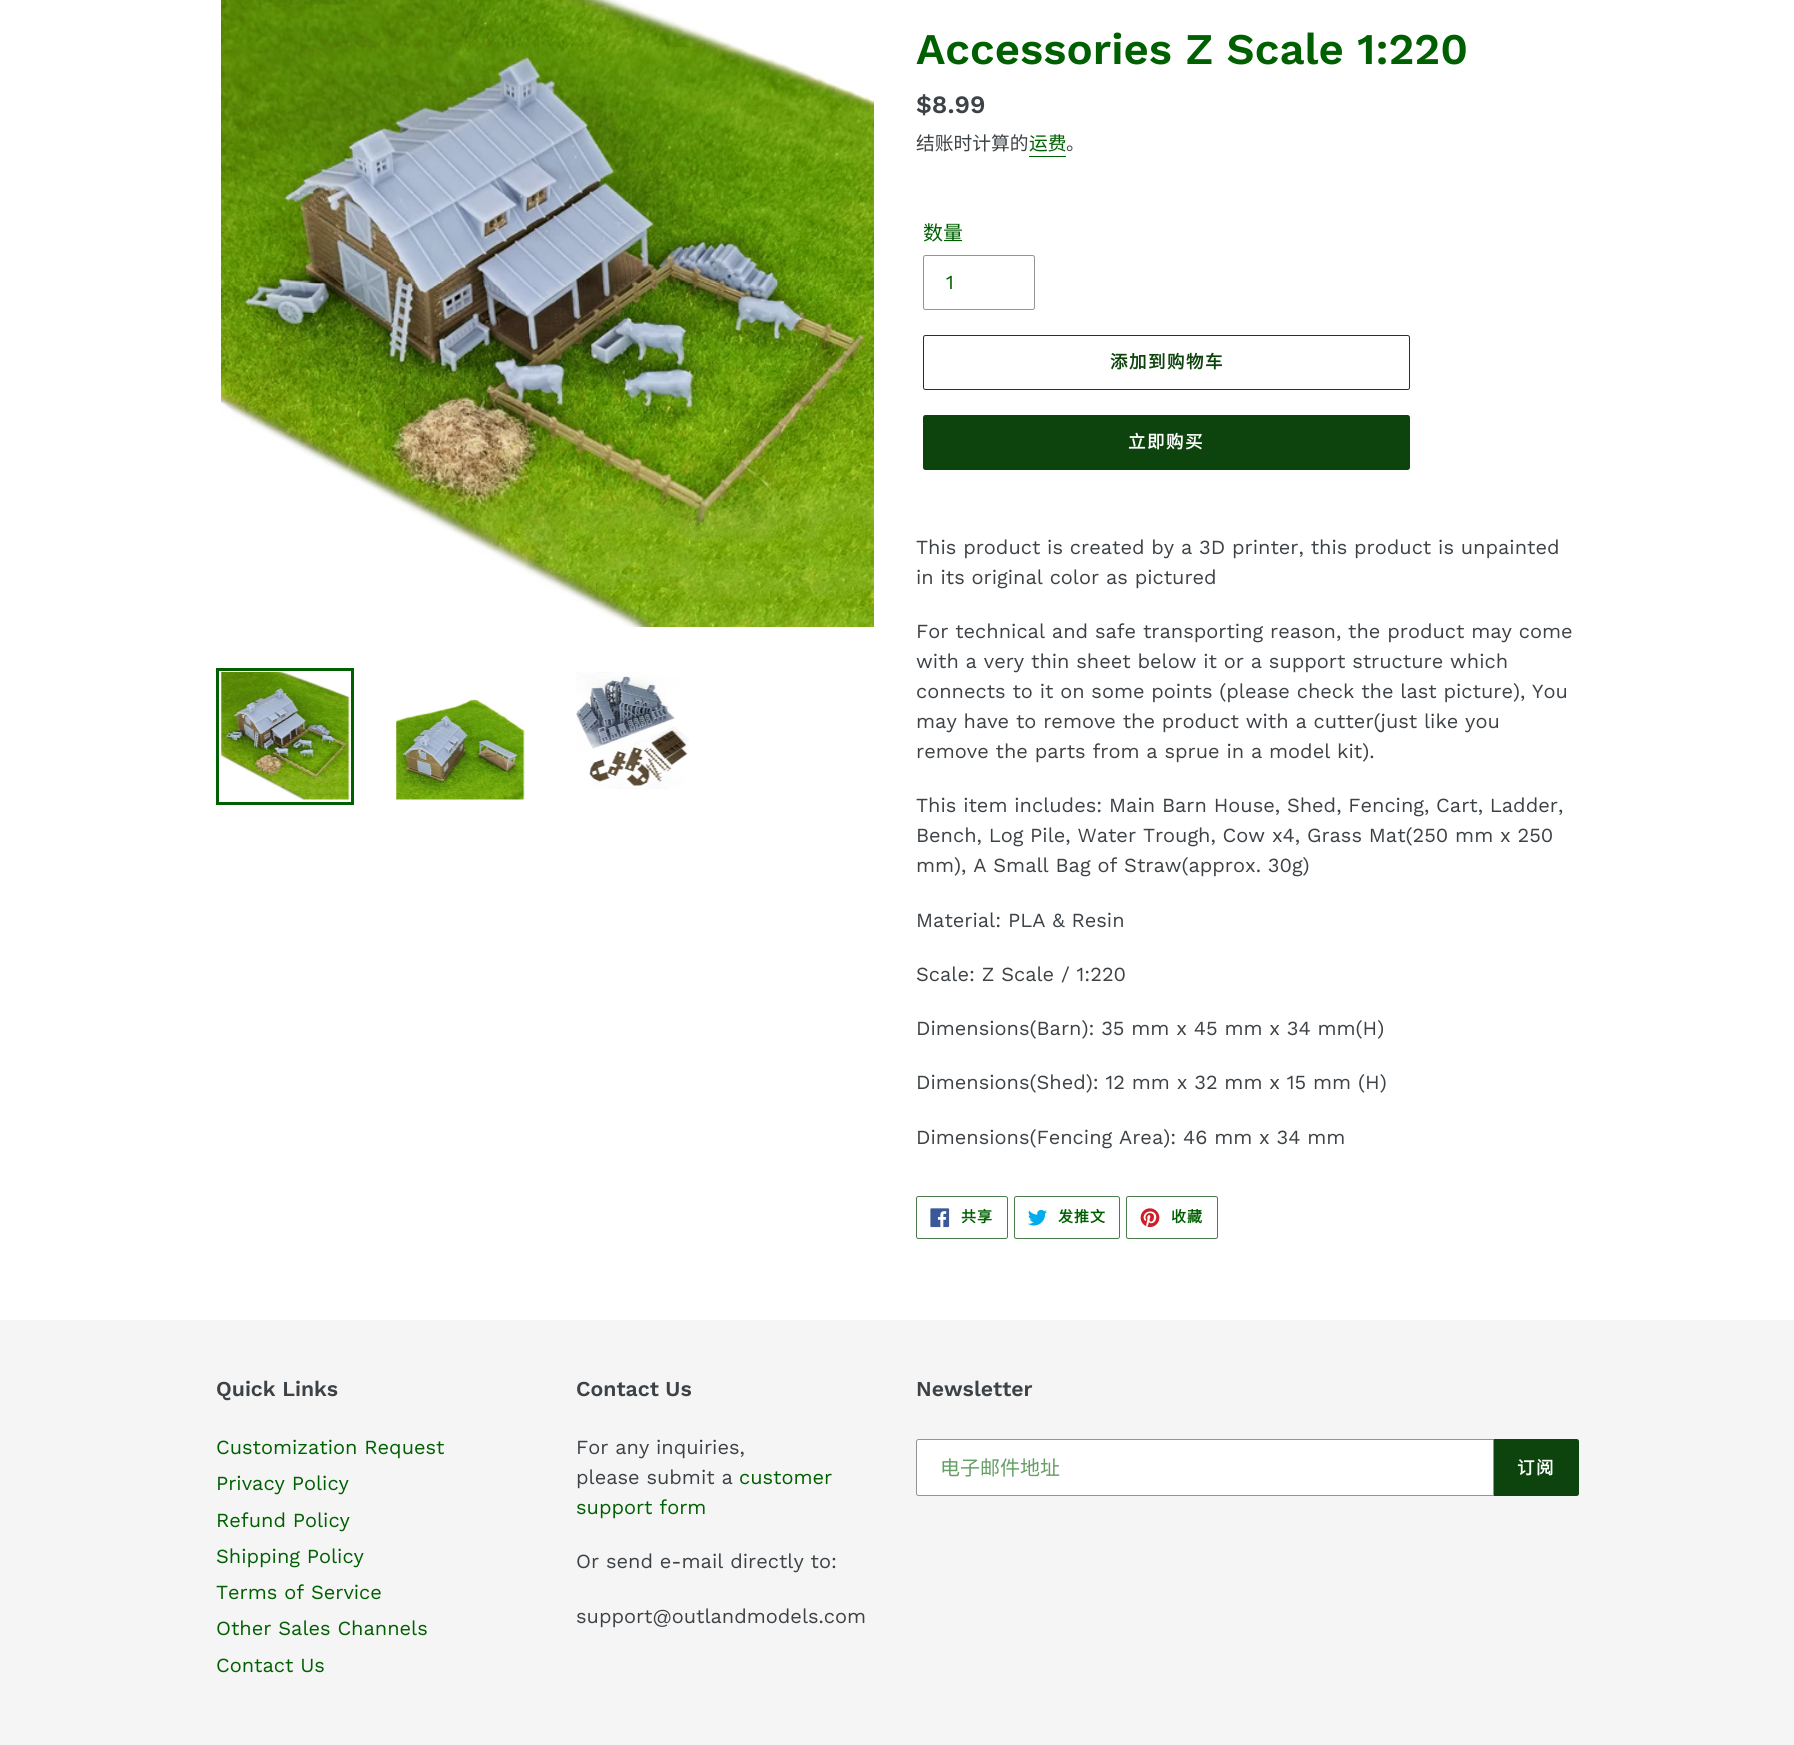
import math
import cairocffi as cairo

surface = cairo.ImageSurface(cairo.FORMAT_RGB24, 1794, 1745)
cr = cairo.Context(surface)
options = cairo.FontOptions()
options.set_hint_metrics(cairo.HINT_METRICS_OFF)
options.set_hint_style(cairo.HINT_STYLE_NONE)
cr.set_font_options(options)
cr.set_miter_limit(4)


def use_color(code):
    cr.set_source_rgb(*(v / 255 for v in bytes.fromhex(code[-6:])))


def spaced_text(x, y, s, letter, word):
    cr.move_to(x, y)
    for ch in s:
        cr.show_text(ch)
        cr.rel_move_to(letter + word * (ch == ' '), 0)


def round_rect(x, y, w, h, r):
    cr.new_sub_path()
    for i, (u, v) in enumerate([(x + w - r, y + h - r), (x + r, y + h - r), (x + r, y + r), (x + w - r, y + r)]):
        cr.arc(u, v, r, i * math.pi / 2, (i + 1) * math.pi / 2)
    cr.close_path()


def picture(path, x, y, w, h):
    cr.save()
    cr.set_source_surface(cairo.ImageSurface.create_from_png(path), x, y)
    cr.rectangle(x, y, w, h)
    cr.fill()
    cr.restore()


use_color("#ffffff")
cr.paint()
picture("img1.png", 221, 0, 653, 627)
cr.rectangle(217.5, 669.5, 135, 134)
use_color("#005f00")
cr.set_line_width(3)
cr.stroke()
picture("img2.png", 221, 672, 129, 128)
picture("img3.png", 396, 699, 129, 101)
picture("img4.png", 576, 672, 113, 117)
cr.select_font_face("Work Sans SemiBold")
cr.set_font_size(43.75)
cr.move_to(916, 64)
cr.show_text("Accessories Z Scale 1:220")
cr.set_font_size(25)
use_color("#3d4246")
cr.move_to(916, 113)
cr.show_text("$8.99")
cr.select_font_face("Noto Sans CJK SC")
cr.set_font_size(18.75)
cr.move_to(916, 150)
cr.show_text("结账时计算的")
use_color("#005f00")
cr.move_to(1029, 150)
cr.show_text("运费")
cr.rectangle(1029, 156, 37, 1)
cr.fill()
use_color("#3d4246")
cr.move_to(1066, 150)
cr.show_text("。")
cr.set_font_size(20)
use_color("#005f00")
cr.move_to(923, 240)
cr.show_text("数量")
round_rect(923.5, 255.5, 111, 54, 2)
use_color("#949494")
cr.set_line_width(1)
cr.stroke()
cr.select_font_face("Work Sans")
use_color("#005f00")
cr.move_to(946, 289)
cr.show_text("1")
round_rect(923.5, 335.5, 486, 54, 2)
use_color("#0d430d")
cr.stroke()
cr.select_font_face("Noto Sans CJK SC", cairo.FONT_SLANT_NORMAL, cairo.FONT_WEIGHT_BOLD)
cr.set_font_size(17.5)
spaced_text(1110, 368, "添加到购物车", 1.5, 0)
round_rect(923, 415, 487, 55, 2.5)
cr.fill()
use_color("#ffffff")
spaced_text(1128, 448, "立即购买", 1.5, 0)
cr.select_font_face("Work Sans")
cr.set_font_size(20)
use_color("#3d4246")
cr.move_to(916, 554)
cr.show_text("This product is created by a 3D printer, this product is unpainted")
cr.move_to(916, 584)
cr.show_text("in its original color as pictured")
cr.move_to(916, 638)
cr.show_text("For technical and safe transporting reason, the product may come")
cr.move_to(916, 668)
cr.show_text("with a very thin sheet below it or a support structure which")
cr.move_to(916, 698)
cr.show_text("connects to it on some points (please check the last picture), You")
cr.move_to(916, 728)
cr.show_text("may have to remove the product with a cutter(just like you")
cr.move_to(916, 758)
cr.show_text("remove the parts from a sprue in a model kit).")
cr.move_to(916, 812)
cr.show_text("This item includes: Main Barn House, Shed, Fencing, Cart, Ladder,")
cr.move_to(916, 842)
cr.show_text("Bench, Log Pile, Water Trough, Cow x4, Grass Mat(250 mm x 250")
cr.move_to(916, 872)
cr.show_text("mm), A Small Bag of Straw(approx. 30g)")
cr.move_to(916, 927)
cr.show_text("Material: PLA & Resin")
cr.move_to(916, 981)
cr.show_text("Scale: Z Scale / 1:220")
cr.move_to(916, 1035)
cr.show_text("Dimensions(Barn): 35 mm x 45 mm x 34 mm(H)")
cr.move_to(916, 1089)
cr.show_text("Dimensions(Shed): 12 mm x 32 mm x 15 mm (H)")
cr.move_to(916, 1144)
cr.show_text("Dimensions(Fencing Area): 46 mm x 34 mm")
round_rect(916.5, 1196.5, 91, 42, 2)
use_color("#4c7b4c")
cr.stroke()
picture("img5.png", 930, 1208, 20, 20)
cr.select_font_face("Noto Sans CJK SC", cairo.FONT_SLANT_NORMAL, cairo.FONT_WEIGHT_BOLD)
cr.set_font_size(15)
use_color("#005f00")
spaced_text(961, 1222, "共享", 1, 0)
round_rect(1014.5, 1196.5, 105, 42, 2)
use_color("#4c7b4c")
cr.stroke()
picture("img6.png", 1028, 1209, 19, 17)
use_color("#005f00")
spaced_text(1058, 1222, "发推文", 1, 0)
round_rect(1126.5, 1196.5, 91, 42, 2)
use_color("#4c7b4c")
cr.stroke()
picture("img7.png", 1140, 1208, 20, 19)
use_color("#005f00")
spaced_text(1171, 1222, "收藏", 1, 0)
use_color("#f5f5f5")
cr.rectangle(0, 1320, 1794, 425)
cr.fill()
cr.select_font_face("Work Sans SemiBold")
cr.set_font_size(21.25)
use_color("#3d4246")
cr.move_to(216, 1396)
cr.show_text("Quick Links")
cr.select_font_face("Work Sans")
cr.set_font_size(20)
use_color("#005f00")
cr.move_to(216, 1454)
cr.show_text("Customization Request")
cr.move_to(216, 1490)
cr.show_text("Privacy Policy")
cr.move_to(216, 1527)
cr.show_text("Refund Policy")
cr.move_to(216, 1563)
cr.show_text("Shipping Policy")
cr.move_to(216, 1599)
cr.show_text("Terms of Service")
cr.move_to(216, 1635)
cr.show_text("Other Sales Channels")
cr.move_to(216, 1672)
cr.show_text("Contact Us")
cr.select_font_face("Work Sans SemiBold")
cr.set_font_size(21.25)
use_color("#3d4246")
cr.move_to(576, 1396)
cr.show_text("Contact Us")
cr.select_font_face("Work Sans")
cr.set_font_size(20)
cr.move_to(576, 1454)
cr.show_text("For any inquiries,")
cr.move_to(576, 1484)
cr.show_text("please submit a")
use_color("#005f00")
cr.move_to(739, 1484)
cr.show_text("customer")
cr.move_to(576, 1514)
cr.show_text("support form")
use_color("#3d4246")
cr.move_to(576, 1568)
cr.show_text("Or send e-mail directly to:")
cr.move_to(576, 1623)
cr.show_text("support@outlandmodels.com")
cr.select_font_face("Work Sans SemiBold")
cr.set_font_size(21.25)
cr.move_to(916, 1396)
cr.show_text("Newsletter")
use_color("#ffffff")
cr.new_path()
cr.move_to(918.5, 1439.5)
cr.line_to(1493.5, 1439.5)
cr.line_to(1493.5, 1495.5)
cr.line_to(918.5, 1495.5)
cr.curve_to(917.5, 1495.5, 916.5, 1494.5, 916.5, 1493.5)
cr.line_to(916.5, 1441.5)
cr.curve_to(916.5, 1440.5, 917.5, 1439.5, 918.5, 1439.5)
cr.close_path()
cr.fill_preserve()
use_color("#949494")
cr.stroke()
cr.select_font_face("Noto Sans CJK SC")
cr.set_font_size(20)
use_color("#669f66")
cr.move_to(940, 1475)
cr.show_text("电子邮件地址")
use_color("#0d430d")
cr.new_path()
cr.move_to(1494, 1439)
cr.line_to(1576.5, 1439)
cr.curve_to(1578, 1439, 1579, 1440, 1579, 1441.5)
cr.line_to(1579, 1493.5)
cr.curve_to(1579, 1495, 1578, 1496, 1576.5, 1496)
cr.line_to(1494, 1496)
cr.close_path()
cr.fill()
cr.select_font_face("Noto Sans CJK SC", cairo.FONT_SLANT_NORMAL, cairo.FONT_WEIGHT_BOLD)
cr.set_font_size(17.5)
use_color("#ffffff")
spaced_text(1517, 1474, "订阅", 1.5, 0)
surface.write_to_png("result.png")
